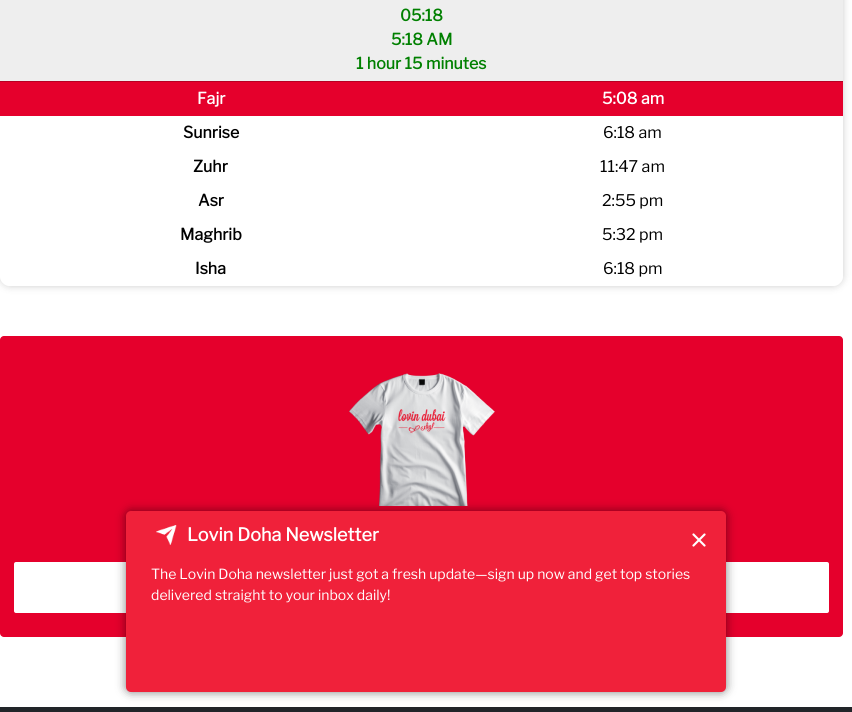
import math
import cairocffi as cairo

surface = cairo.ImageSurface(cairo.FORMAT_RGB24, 852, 712)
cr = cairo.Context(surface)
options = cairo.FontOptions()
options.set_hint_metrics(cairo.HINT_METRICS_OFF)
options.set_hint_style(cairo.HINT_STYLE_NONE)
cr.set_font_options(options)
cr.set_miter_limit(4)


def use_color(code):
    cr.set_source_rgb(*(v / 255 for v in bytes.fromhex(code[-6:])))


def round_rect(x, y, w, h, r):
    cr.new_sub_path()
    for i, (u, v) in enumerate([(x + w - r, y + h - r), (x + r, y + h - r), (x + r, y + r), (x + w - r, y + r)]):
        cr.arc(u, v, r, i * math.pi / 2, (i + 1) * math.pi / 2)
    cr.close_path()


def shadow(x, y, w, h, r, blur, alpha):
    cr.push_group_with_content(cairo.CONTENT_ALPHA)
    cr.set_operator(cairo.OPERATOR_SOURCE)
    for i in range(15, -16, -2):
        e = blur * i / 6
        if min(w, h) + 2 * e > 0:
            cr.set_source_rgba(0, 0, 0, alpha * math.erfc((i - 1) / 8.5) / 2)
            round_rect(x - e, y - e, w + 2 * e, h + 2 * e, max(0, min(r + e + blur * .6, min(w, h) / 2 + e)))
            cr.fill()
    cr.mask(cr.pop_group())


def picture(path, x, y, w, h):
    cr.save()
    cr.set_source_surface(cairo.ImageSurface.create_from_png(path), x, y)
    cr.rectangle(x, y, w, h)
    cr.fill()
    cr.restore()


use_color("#ffffff")
cr.paint()
cr.save()
cr.set_fill_rule(cairo.FILL_RULE_EVEN_ODD)
cr.new_path()
cr.move_to(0, 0)
cr.line_to(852, 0)
cr.line_to(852, 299)
cr.line_to(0, 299)
cr.close_path()
cr.move_to(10, -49)
cr.line_to(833, -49)
cr.curve_to(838.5, -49, 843, -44.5, 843, -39)
cr.line_to(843, 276)
cr.curve_to(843, 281.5, 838.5, 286, 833, 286)
cr.line_to(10, 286)
cr.curve_to(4.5, 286, 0, 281.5, 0, 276)
cr.line_to(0, -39)
cr.curve_to(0, -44.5, 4.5, -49, 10, -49)
cr.close_path()
cr.clip()
use_color("#000000")
shadow(0, -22, 843, 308, 10, 4, 0.2)
cr.restore()
use_color("#eeeeee")
cr.rectangle(0, 0, 843, 81)
cr.fill()
use_color("#b70023")
cr.rectangle(0, 81, 843, 1)
cr.fill()
cr.select_font_face("Libre Franklin", cairo.FONT_SLANT_NORMAL, cairo.FONT_WEIGHT_BOLD)
cr.set_font_size(16)
use_color("#008000")
cr.move_to(400, 21)
cr.show_text("05:18")
cr.move_to(391, 45)
cr.show_text("5:18 AM")
cr.move_to(356, 69)
cr.show_text("1 hour 15 minutes")
use_color("#e5002c")
cr.rectangle(0, 82, 843, 34)
cr.fill()
use_color("#ffffff")
cr.move_to(197, 104)
cr.show_text("Fajr")
cr.move_to(602, 104)
cr.show_text("5:08 am")
use_color("#000000")
cr.move_to(183, 138)
cr.show_text("Sunrise")
cr.select_font_face("Libre Franklin Thin")
cr.move_to(603, 138)
cr.show_text("6:18 am")
cr.select_font_face("Libre Franklin", cairo.FONT_SLANT_NORMAL, cairo.FONT_WEIGHT_BOLD)
cr.move_to(193, 172)
cr.show_text("Zuhr")
cr.select_font_face("Libre Franklin Thin")
cr.move_to(600, 172)
cr.show_text("11:47 am")
cr.select_font_face("Libre Franklin", cairo.FONT_SLANT_NORMAL, cairo.FONT_WEIGHT_BOLD)
cr.move_to(198, 206)
cr.show_text("Asr")
cr.select_font_face("Libre Franklin Thin")
cr.move_to(602, 206)
cr.show_text("2:55 pm")
cr.select_font_face("Libre Franklin", cairo.FONT_SLANT_NORMAL, cairo.FONT_WEIGHT_BOLD)
cr.move_to(180, 240)
cr.show_text("Maghrib")
cr.select_font_face("Libre Franklin Thin")
cr.move_to(602, 240)
cr.show_text("5:32 pm")
cr.select_font_face("Libre Franklin", cairo.FONT_SLANT_NORMAL, cairo.FONT_WEIGHT_BOLD)
cr.move_to(195, 274)
cr.show_text("Isha")
cr.select_font_face("Libre Franklin Thin")
cr.move_to(603, 274)
cr.show_text("6:18 pm")
use_color("#e5002c")
round_rect(0, 336, 843, 301, 4)
cr.fill()
picture("img1.png", 349, 373, 146, 133)
use_color("#ffffff")
round_rect(14, 562, 815, 51, 2)
cr.fill()
use_color("#212529")
cr.rectangle(0, 707, 852, 5)
cr.fill()
use_color("#000000")
shadow(126, 511, 600, 181, 5, 5, 0.5)
use_color("#f0213a")
round_rect(126, 511, 600, 181, 5)
cr.fill()
picture("img2.png", 156, 525, 21, 20)
cr.select_font_face("Libre Franklin", cairo.FONT_SLANT_NORMAL, cairo.FONT_WEIGHT_BOLD)
cr.set_font_size(18)
use_color("#ffffff")
cr.move_to(187, 541)
cr.show_text("Lovin Doha Newsletter")
picture("img3.png", 692, 533, 14, 14)
cr.select_font_face("Libre Franklin Thin")
cr.set_font_size(14)
cr.move_to(151, 579)
cr.show_text("The Lovin Doha newsletter just got a fresh update—sign up now and get top stories")
cr.move_to(151, 600)
cr.show_text("delivered straight to your inbox daily!")
surface.write_to_png("result.png")
